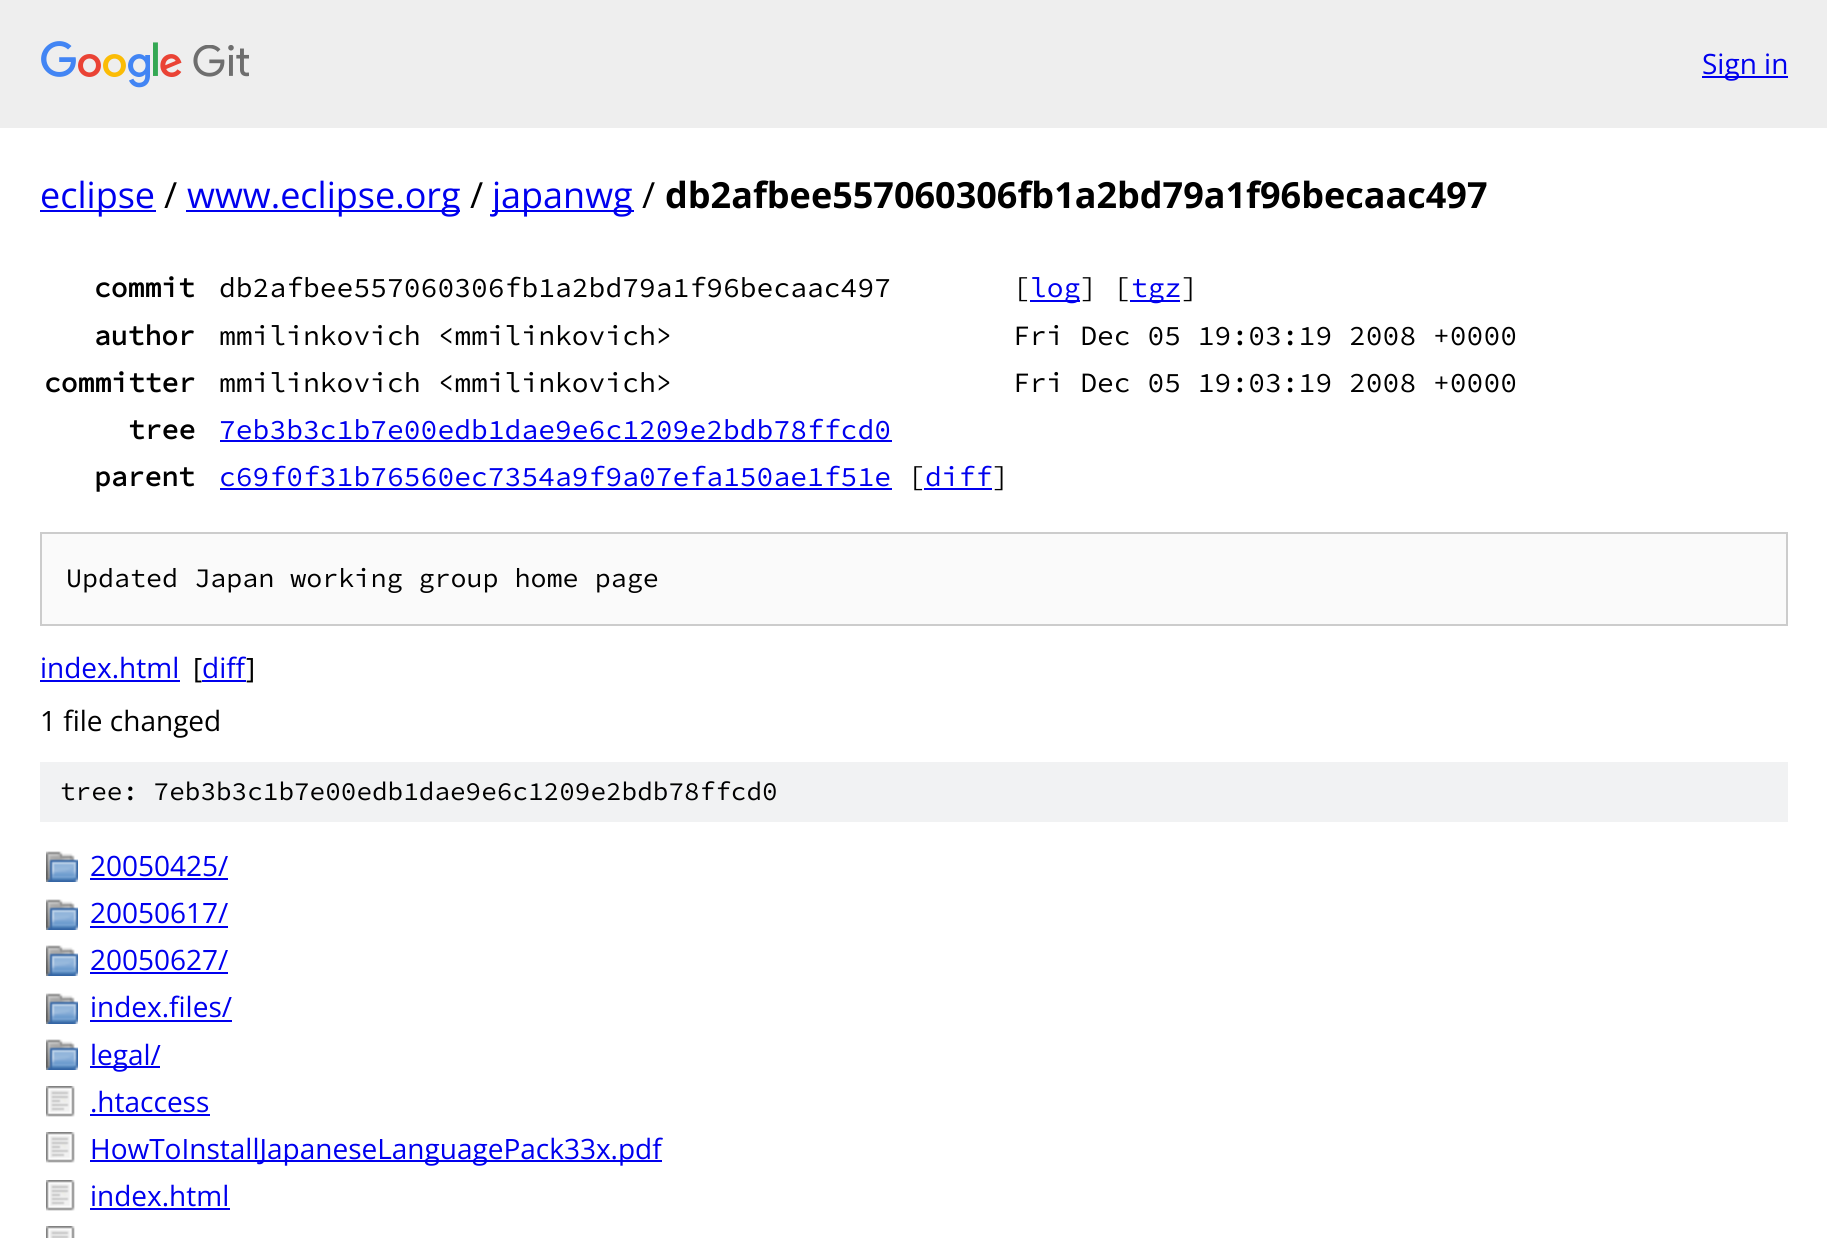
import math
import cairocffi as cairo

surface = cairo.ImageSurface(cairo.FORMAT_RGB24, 1827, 1238)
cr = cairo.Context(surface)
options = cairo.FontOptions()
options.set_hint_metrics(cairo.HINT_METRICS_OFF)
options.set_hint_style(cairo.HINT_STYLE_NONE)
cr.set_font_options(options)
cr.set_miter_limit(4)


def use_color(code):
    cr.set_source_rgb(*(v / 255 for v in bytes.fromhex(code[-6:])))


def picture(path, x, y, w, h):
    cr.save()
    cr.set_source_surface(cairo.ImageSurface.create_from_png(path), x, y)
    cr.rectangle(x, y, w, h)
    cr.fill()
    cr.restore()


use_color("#ffffff")
cr.paint()
use_color("#eeeeee")
cr.rectangle(0, 0, 1827, 128)
cr.fill()
picture("img1.png", 41, 41, 208, 47)
use_color("#0000ee")
cr.rectangle(1702, 76, 86, 2)
cr.fill()
cr.select_font_face("Open Sans")
cr.set_font_size(28)
cr.move_to(1702, 74)
cr.show_text("Sign in")
cr.rectangle(40, 210, 116, 2)
cr.fill()
cr.set_font_size(36)
cr.move_to(40, 208)
cr.show_text("eclipse")
use_color("#000000")
cr.move_to(164, 208)
cr.show_text("/")
use_color("#0000ee")
cr.rectangle(186, 210, 274, 2)
cr.fill()
cr.move_to(187, 208)
cr.show_text("www.eclipse.org")
use_color("#000000")
cr.move_to(470, 208)
cr.show_text("/")
use_color("#0000ee")
cr.rectangle(492, 210, 142, 2)
cr.fill()
cr.move_to(492, 208)
cr.show_text("japanwg")
use_color("#000000")
cr.move_to(642, 208)
cr.show_text("/")
cr.select_font_face("Open Sans", cairo.FONT_SLANT_NORMAL, cairo.FONT_WEIGHT_BOLD)
cr.move_to(665, 208)
cr.show_text("db2afbee557060306fb1a2bd79a1f96becaac497")
cr.select_font_face("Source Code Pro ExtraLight", cairo.FONT_SLANT_NORMAL, cairo.FONT_WEIGHT_BOLD)
cr.set_font_size(28)
cr.move_to(94, 297)
cr.show_text("commit")
cr.select_font_face("Source Code Pro ExtraLight ExtraLight")
cr.move_to(219, 297)
cr.show_text("db2afbee557060306fb1a2bd79a1f96becaac497")
cr.move_to(1013, 297)
cr.show_text("[")
use_color("#0000ee")
cr.rectangle(1030, 300, 50, 2)
cr.fill()
cr.move_to(1030, 297)
cr.show_text("log")
use_color("#000000")
cr.move_to(1080, 297)
cr.show_text("] [")
use_color("#0000ee")
cr.rectangle(1130, 300, 50, 2)
cr.fill()
cr.move_to(1131, 297)
cr.show_text("tgz")
use_color("#000000")
cr.move_to(1181, 297)
cr.show_text("]")
cr.select_font_face("Source Code Pro ExtraLight", cairo.FONT_SLANT_NORMAL, cairo.FONT_WEIGHT_BOLD)
cr.move_to(94, 345)
cr.show_text("author")
cr.select_font_face("Source Code Pro ExtraLight ExtraLight")
cr.move_to(219, 345)
cr.show_text("mmilinkovich <mmilinkovich>")
cr.move_to(1013, 345)
cr.show_text("Fri Dec 05 19:03:19 2008 +0000")
cr.select_font_face("Source Code Pro ExtraLight", cairo.FONT_SLANT_NORMAL, cairo.FONT_WEIGHT_BOLD)
cr.move_to(44, 392)
cr.show_text("committer")
cr.select_font_face("Source Code Pro ExtraLight ExtraLight")
cr.move_to(219, 392)
cr.show_text("mmilinkovich <mmilinkovich>")
cr.move_to(1013, 392)
cr.show_text("Fri Dec 05 19:03:19 2008 +0000")
cr.select_font_face("Source Code Pro ExtraLight", cairo.FONT_SLANT_NORMAL, cairo.FONT_WEIGHT_BOLD)
cr.move_to(128, 439)
cr.show_text("tree")
cr.select_font_face("Source Code Pro ExtraLight ExtraLight")
use_color("#0000ee")
cr.move_to(219, 439)
cr.show_text("7eb3b3c1b7e00edb1dae9e6c1209e2bdb78ffcd0")
cr.rectangle(220, 440, 672, 2)
cr.fill()
cr.select_font_face("Source Code Pro ExtraLight", cairo.FONT_SLANT_NORMAL, cairo.FONT_WEIGHT_BOLD)
use_color("#000000")
cr.move_to(94, 486)
cr.show_text("parent")
cr.select_font_face("Source Code Pro ExtraLight ExtraLight")
use_color("#0000ee")
cr.move_to(219, 486)
cr.show_text("c69f0f31b76560ec7354a9f9a07efa150ae1f51e")
cr.rectangle(220, 488, 672, 2)
cr.fill()
use_color("#000000")
cr.move_to(908, 486)
cr.show_text("[")
use_color("#0000ee")
cr.rectangle(924, 488, 68, 2)
cr.fill()
cr.move_to(925, 486)
cr.show_text("diff")
use_color("#000000")
cr.move_to(992, 486)
cr.show_text("]")
use_color("#fafafa")
cr.rectangle(41, 533, 1746, 92)
cr.fill_preserve()
use_color("#cccccc")
cr.stroke()
cr.set_font_size(26.7)
use_color("#000000")
cr.move_to(66, 587)
cr.show_text("Updated Japan working group home page")
cr.select_font_face("Open Sans")
cr.set_font_size(28)
use_color("#0000ee")
cr.move_to(40, 678)
cr.show_text("index.html")
cr.rectangle(40, 680, 140, 2)
cr.fill()
use_color("#000000")
cr.move_to(193, 678)
cr.show_text("[")
use_color("#0000ee")
cr.rectangle(202, 680, 44, 2)
cr.fill()
cr.move_to(202, 678)
cr.show_text("diff")
use_color("#000000")
cr.move_to(246, 678)
cr.show_text("]")
cr.move_to(40, 731)
cr.show_text("1 file changed")
use_color("#f1f2f3")
cr.rectangle(40, 762, 1748, 60)
cr.fill()
cr.select_font_face("Source Code Pro ExtraLight ExtraLight")
cr.set_font_size(26)
use_color("#000000")
cr.move_to(60, 800)
cr.show_text("tree: 7eb3b3c1b7e00edb1dae9e6c1209e2bdb78ffcd0")
picture("img2.png", 46, 851, 32, 31)
cr.select_font_face("Open Sans")
cr.set_font_size(28)
use_color("#0000ee")
cr.move_to(90, 876)
cr.show_text("20050425/")
cr.rectangle(90, 878, 138, 2)
cr.fill()
picture("img2.png", 46, 899, 32, 31)
cr.move_to(90, 923)
cr.show_text("20050617/")
cr.rectangle(90, 926, 138, 2)
cr.fill()
picture("img2.png", 46, 945, 32, 31)
cr.move_to(90, 970)
cr.show_text("20050627/")
cr.rectangle(90, 972, 138, 2)
cr.fill()
picture("img2.png", 46, 993, 32, 31)
cr.move_to(90, 1017)
cr.show_text("index.files/")
cr.rectangle(90, 1020, 142, 2)
cr.fill()
picture("img2.png", 46, 1039, 32, 31)
cr.rectangle(90, 1066, 70, 2)
cr.fill()
cr.move_to(90, 1065)
cr.show_text("legal/")
picture("img3.png", 46, 1086, 29, 31)
cr.move_to(90, 1112)
cr.show_text(".htaccess")
cr.rectangle(90, 1114, 120, 2)
cr.fill()
picture("img3.png", 46, 1132, 29, 31)
cr.rectangle(90, 1160, 572, 2)
cr.fill()
cr.move_to(90, 1159)
cr.show_text("HowToInstallJapaneseLanguagePack33x.pdf")
picture("img3.png", 46, 1180, 29, 31)
cr.move_to(90, 1206)
cr.show_text("index.html")
cr.rectangle(90, 1208, 140, 2)
cr.fill()
picture("img4.png", 46, 1226, 29, 12)
surface.write_to_png("result.png")
